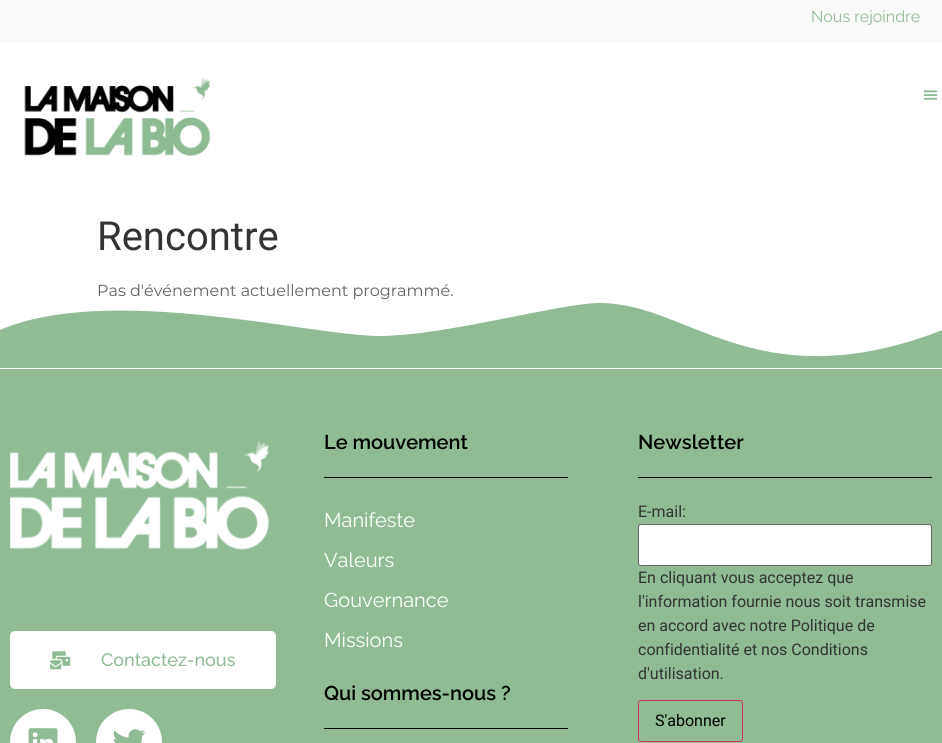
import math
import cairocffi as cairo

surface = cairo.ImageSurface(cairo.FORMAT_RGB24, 942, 743)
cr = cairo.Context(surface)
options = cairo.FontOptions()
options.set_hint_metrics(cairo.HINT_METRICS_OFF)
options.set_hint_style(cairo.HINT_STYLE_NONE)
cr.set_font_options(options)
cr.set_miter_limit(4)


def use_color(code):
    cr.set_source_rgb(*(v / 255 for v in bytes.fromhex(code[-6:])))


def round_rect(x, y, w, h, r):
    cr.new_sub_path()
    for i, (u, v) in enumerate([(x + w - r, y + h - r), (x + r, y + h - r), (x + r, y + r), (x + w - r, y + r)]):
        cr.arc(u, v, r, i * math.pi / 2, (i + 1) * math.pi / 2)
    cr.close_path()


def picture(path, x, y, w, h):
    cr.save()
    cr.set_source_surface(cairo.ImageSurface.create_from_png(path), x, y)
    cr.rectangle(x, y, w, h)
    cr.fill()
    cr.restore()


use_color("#ffffff")
cr.paint()
use_color("#f9f9f9")
cr.rectangle(0, 0, 942, 43)
cr.fill()
cr.select_font_face("Raleway")
cr.set_font_size(16)
use_color("#90bb95")
cr.move_to(811, 22)
cr.show_text("Nous rejoindre")
picture("img1.png", 24, 77, 187, 79)
picture("img2.png", 923, 90, 15, 10)
cr.select_font_face("Roboto")
cr.set_font_size(40)
use_color("#333333")
cr.move_to(97, 250)
cr.show_text("Rencontre")
cr.select_font_face("Montserrat")
cr.set_font_size(16)
use_color("#626262")
cr.move_to(97, 296)
cr.show_text("Pas d'événement actuellement programmé.")
use_color("#90bb95")
cr.set_fill_rule(cairo.FILL_RULE_EVEN_ODD)
cr.new_path()
cr.move_to(942, 368)
cr.line_to(0, 368)
cr.line_to(0, 330)
cr.curve_to(109, 283, 312, 336, 379, 336)
cr.curve_to(445, 336, 560, 303, 600, 303)
cr.curve_to(688, 303, 754, 398, 932, 334)
cr.line_to(942, 330)
cr.close_path()
cr.fill()
cr.rectangle(0, 369, 942, 374)
cr.fill()
picture("img3.png", 10, 441, 259, 109)
use_color("#ffffff")
round_rect(10, 631, 266, 58, 5)
cr.fill()
picture("img4.png", 50, 651, 21, 19)
cr.select_font_face("Raleway Medium")
cr.set_font_size(18)
use_color("#90bb95")
cr.move_to(101, 666)
cr.show_text("Contactez-nous")
use_color("#ffffff")
cr.new_path()
cr.arc(43, 742, 33, 0, 2 * math.pi)
cr.fill()
picture("img5.png", 28, 728, 30, 15)
cr.arc(129, 742, 33, 0, 2 * math.pi)
cr.fill()
picture("img6.png", 113, 729, 33, 14)
cr.select_font_face("Raleway SemiBold")
cr.set_font_size(20)
use_color("#000000")
cr.move_to(324, 449)
cr.show_text("Le mouvement")
cr.rectangle(324, 477, 244, 1)
cr.fill()
cr.select_font_face("Raleway")
use_color("#ffffff")
cr.move_to(324, 527)
cr.show_text("Manifeste")
cr.move_to(324, 567)
cr.show_text("Valeurs")
cr.move_to(324, 607)
cr.show_text("Gouvernance")
cr.move_to(324, 647)
cr.show_text("Missions")
cr.select_font_face("Raleway SemiBold")
use_color("#000000")
cr.move_to(324, 700)
cr.show_text("Qui sommes-nous ?")
cr.rectangle(324, 728, 244, 1)
cr.fill()
cr.move_to(638, 449)
cr.show_text("Newsletter")
cr.rectangle(638, 477, 294, 1)
cr.fill()
cr.select_font_face("Roboto")
cr.set_font_size(16)
use_color("#333333")
cr.move_to(638, 517)
cr.show_text("E-mail:")
use_color("#ffffff")
round_rect(638.5, 524.5, 293, 41, 2.5)
cr.fill_preserve()
use_color("#666666")
cr.set_line_width(1)
cr.stroke()
use_color("#333333")
cr.move_to(638, 583)
cr.show_text("En cliquant vous acceptez que")
cr.move_to(638, 607)
cr.show_text("l'information fournie nous soit transmise")
cr.move_to(638, 631)
cr.show_text("en accord avec notre Politique de")
cr.move_to(638, 655)
cr.show_text("confidentialité et nos Conditions")
cr.move_to(638, 679)
cr.show_text("d'utilisation.")
round_rect(638.5, 700.5, 104, 41, 2.5)
use_color("#cc3366")
cr.stroke()
use_color("#000000")
cr.move_to(655, 726)
cr.show_text("S'abonner")
surface.write_to_png("result.png")
